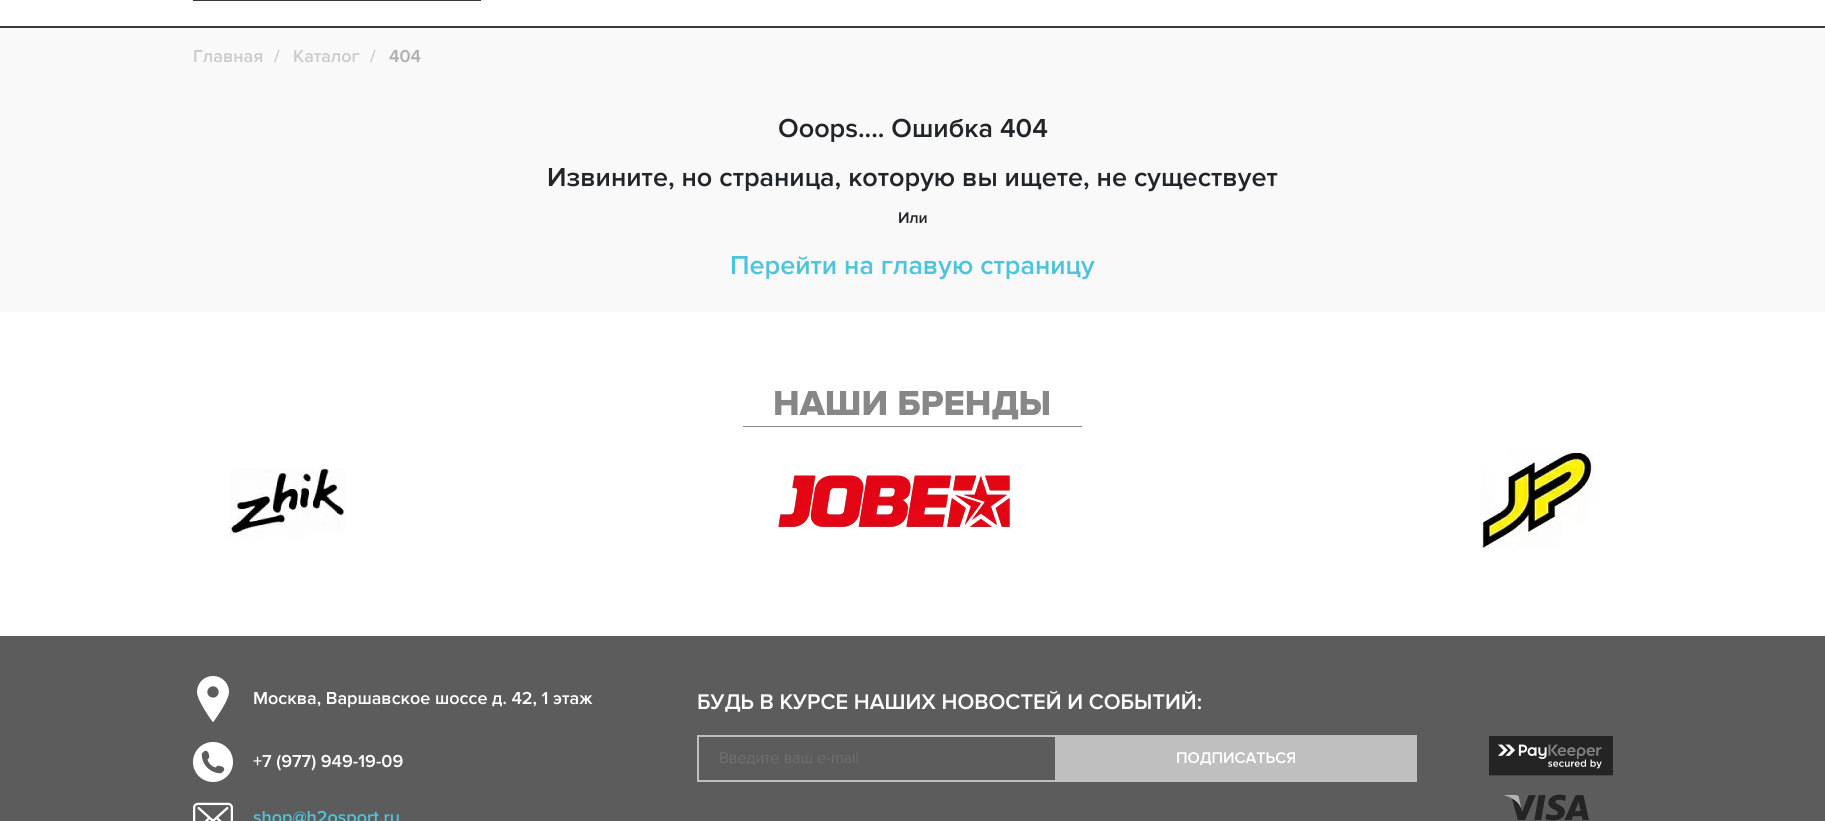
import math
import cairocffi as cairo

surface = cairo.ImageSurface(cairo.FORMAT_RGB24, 1825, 821)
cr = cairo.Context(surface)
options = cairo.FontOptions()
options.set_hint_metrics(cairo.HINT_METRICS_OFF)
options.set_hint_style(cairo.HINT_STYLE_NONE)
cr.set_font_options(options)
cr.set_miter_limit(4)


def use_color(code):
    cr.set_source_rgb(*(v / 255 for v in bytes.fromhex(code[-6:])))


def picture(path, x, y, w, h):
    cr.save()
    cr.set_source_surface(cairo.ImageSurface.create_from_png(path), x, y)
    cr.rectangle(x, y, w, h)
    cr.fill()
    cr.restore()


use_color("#ffffff")
cr.paint()
cr.rectangle(193.5, -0.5, 287, 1)
use_color("#383838")
cr.set_line_width(1)
cr.stroke()
cr.rectangle(0, 26, 1825, 2)
cr.fill()
use_color("#f9f9f9")
cr.rectangle(0, 28, 1825, 284)
cr.fill()
cr.select_font_face("Proxima Nova SemiBold")
cr.set_font_size(18)
use_color("#cccbcb")
cr.move_to(193, 62)
cr.show_text("Главная")
cr.move_to(274, 62)
cr.show_text("/")
cr.move_to(293, 62)
cr.show_text("Каталог")
cr.move_to(370, 62)
cr.show_text("/")
use_color("#aeaeae")
cr.move_to(389, 62)
cr.show_text("404")
cr.set_font_size(27)
use_color("#212529")
cr.move_to(778, 137)
cr.show_text("Ooops.... Ошибка 404")
cr.move_to(547, 186)
cr.show_text("Извините, но страница, которую вы ищете, не существует")
cr.set_font_size(16)
cr.move_to(898, 223)
cr.show_text("Или")
cr.set_font_size(27)
use_color("#4dc4dc")
cr.move_to(730, 274)
cr.show_text("Перейти на главую страницу")
cr.select_font_face("Proxima Nova ExtraBold")
cr.set_font_size(36)
use_color("#878787")
cr.move_to(773, 415)
cr.show_text("НАШИ БРЕНДЫ")
cr.rectangle(743, 426, 339, 1)
cr.fill()
picture("img1.png", 229, 468, 116, 69)
picture("img2.png", 778, 475, 232, 52)
picture("img3.png", 1481, 451, 113, 98)
use_color("#5c5c5c")
cr.rectangle(0, 636, 1825, 185)
cr.fill()
picture("img4.png", 197, 676, 32, 46)
cr.select_font_face("Proxima Nova SemiBold")
cr.set_font_size(18)
use_color("#ffffff")
cr.move_to(253, 704)
cr.show_text("Москва, Варшавское шоссе д. 42, 1 этаж")
picture("img5.png", 193, 742, 40, 40)
cr.move_to(253, 767)
cr.show_text("+7 (977) 949-19-09")
picture("img6.png", 193, 802, 40, 19)
use_color("#4dc4dc")
cr.move_to(253, 823)
cr.show_text("shop@h2osport.ru")
cr.set_font_size(22)
use_color("#ffffff")
cr.move_to(697, 709)
cr.show_text("БУДЬ В КУРСЕ НАШИХ НОВОСТЕЙ И СОБЫТИЙ:")
cr.rectangle(698, 736, 358, 45)
use_color("#bfbfbf")
cr.set_line_width(2)
cr.stroke()
cr.select_font_face("Proxima Nova Light")
cr.set_font_size(16)
use_color("#757575")
cr.move_to(719, 763)
cr.show_text("Введите ваш e-mail")
use_color("#bfbfbf")
cr.rectangle(1057, 735, 360, 47)
cr.fill()
cr.select_font_face("Proxima Nova SemiBold")
use_color("#ffffff")
cr.move_to(1176, 763)
cr.show_text("ПОДПИСАТЬСЯ")
picture("img7.png", 1489, 736, 124, 85)
surface.write_to_png("result.png")
